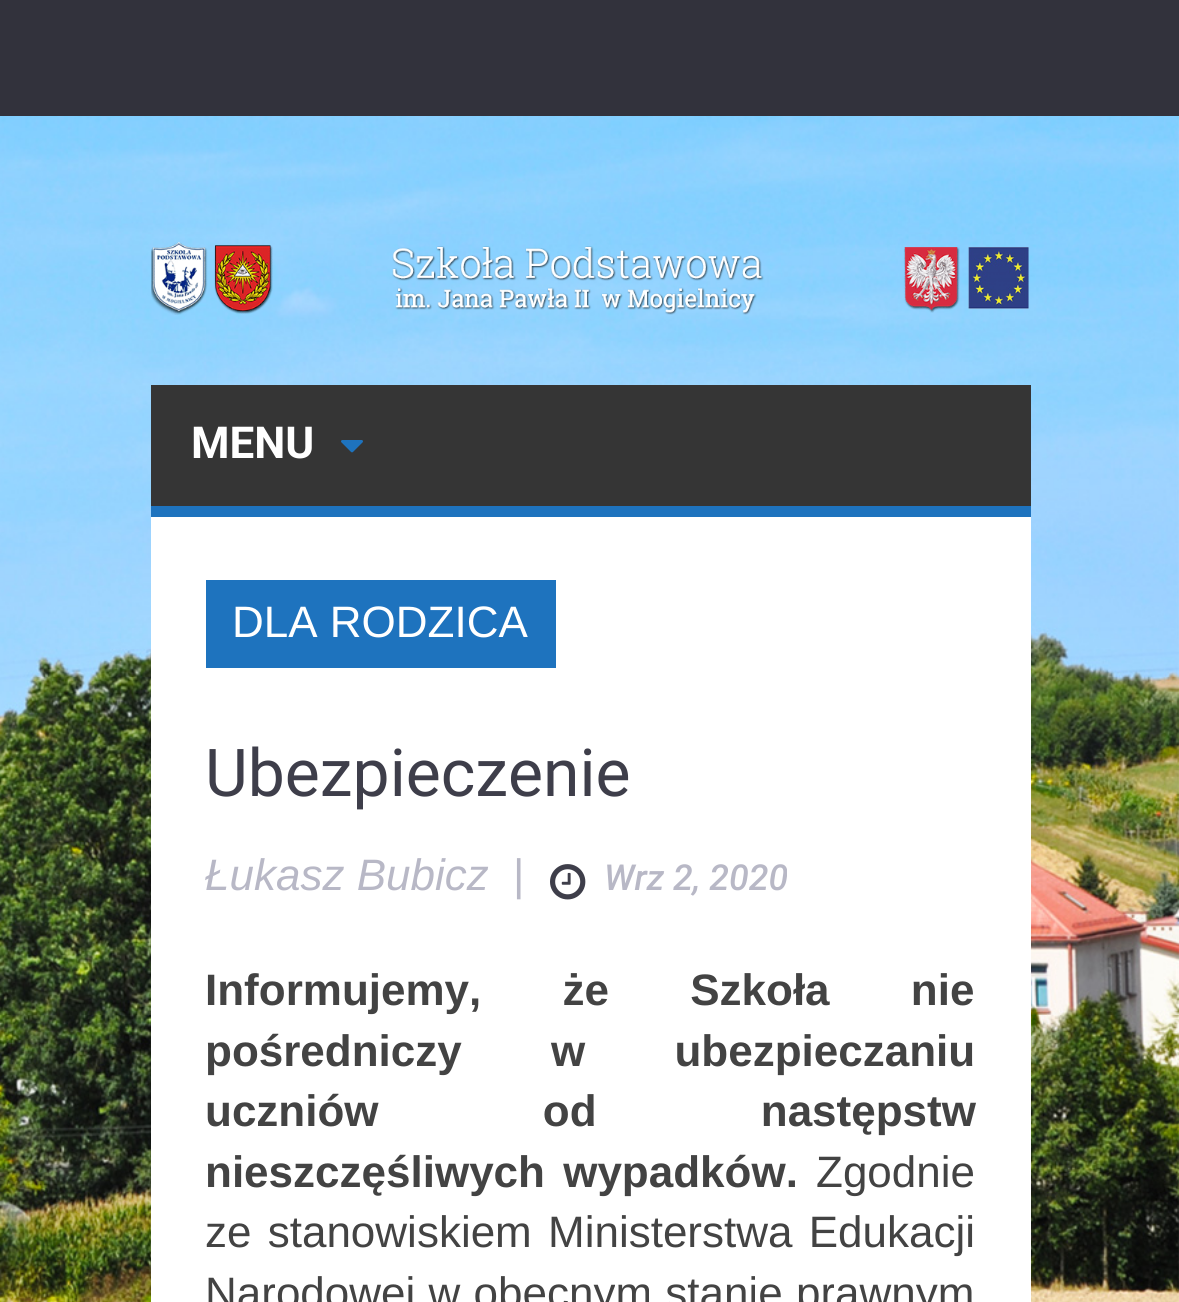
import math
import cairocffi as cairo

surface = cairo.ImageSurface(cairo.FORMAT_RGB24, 1179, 1302)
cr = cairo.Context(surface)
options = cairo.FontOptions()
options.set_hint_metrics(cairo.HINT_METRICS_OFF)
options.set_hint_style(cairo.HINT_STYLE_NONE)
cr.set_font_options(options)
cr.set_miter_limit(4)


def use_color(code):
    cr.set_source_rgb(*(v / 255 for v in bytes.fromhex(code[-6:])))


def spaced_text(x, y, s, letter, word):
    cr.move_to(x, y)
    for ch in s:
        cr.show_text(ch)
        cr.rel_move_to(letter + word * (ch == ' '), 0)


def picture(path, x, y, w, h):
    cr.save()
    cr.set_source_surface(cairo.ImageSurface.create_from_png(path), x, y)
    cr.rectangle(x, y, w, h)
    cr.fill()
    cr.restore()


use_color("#ffffff")
cr.paint()
picture("img1.png", 0, 116, 1179, 1186)
use_color("#32323c")
cr.rectangle(0, 0, 1179, 116)
cr.fill()
picture("img2.png", 151, 242, 878, 73)
use_color("#353535")
cr.rectangle(151, 385, 880, 121)
cr.fill()
use_color("#1e73be")
cr.rectangle(151, 506, 880, 11)
cr.fill()
cr.select_font_face("Roboto", cairo.FONT_SLANT_NORMAL, cairo.FONT_WEIGHT_BOLD)
cr.set_font_size(44)
use_color("#ffffff")
cr.move_to(191, 458)
cr.show_text("MENU")
picture("img3.png", 341, 440, 22, 13)
cr.rectangle(151, 517, 880, 785)
cr.fill()
use_color("#1e73be")
cr.rectangle(206, 580, 350, 88)
cr.fill()
cr.select_font_face("Liberation Sans")
use_color("#ffffff")
cr.move_to(232, 637)
cr.show_text("DLA RODZICA")
cr.select_font_face("Roboto")
cr.set_font_size(66)
use_color("#3e3e4a")
cr.move_to(205, 796)
cr.show_text("Ubezpieczenie")
cr.select_font_face("Liberation Sans", cairo.FONT_SLANT_ITALIC)
cr.set_font_size(44)
use_color("#b8b8c6")
cr.move_to(205, 890)
cr.show_text("Łukasz Bubicz")
cr.select_font_face("Liberation Sans")
cr.move_to(513, 890)
cr.show_text("|")
picture("img4.png", 550, 864, 36, 36)
cr.select_font_face("Roboto Medium", cairo.FONT_SLANT_ITALIC)
cr.set_font_size(35.75)
cr.move_to(604, 890)
cr.show_text("Wrz 2, 2020")
cr.select_font_face("Liberation Sans", cairo.FONT_SLANT_NORMAL, cairo.FONT_WEIGHT_BOLD)
cr.set_font_size(44)
use_color("#434343")
spaced_text(205, 1005, "Informujemy, że Szkoła nie", 0, 69)
spaced_text(205, 1066, "pośredniczy w ubezpieczaniu", 0, 77)
spaced_text(205, 1126, "uczniów od następstw", 0, 152)
spaced_text(205, 1187, "nieszczęśliwych wypadków.", 0, 6)
cr.select_font_face("Liberation Sans")
cr.move_to(816, 1187)
cr.show_text("Zgodnie")
spaced_text(205, 1247, "ze stanowiskiem Ministerstwa Edukacji", 0, 4)
spaced_text(205, 1308, "Narodowej w obecnym stanie prawnym", 0, 1)
surface.write_to_png("result.png")
